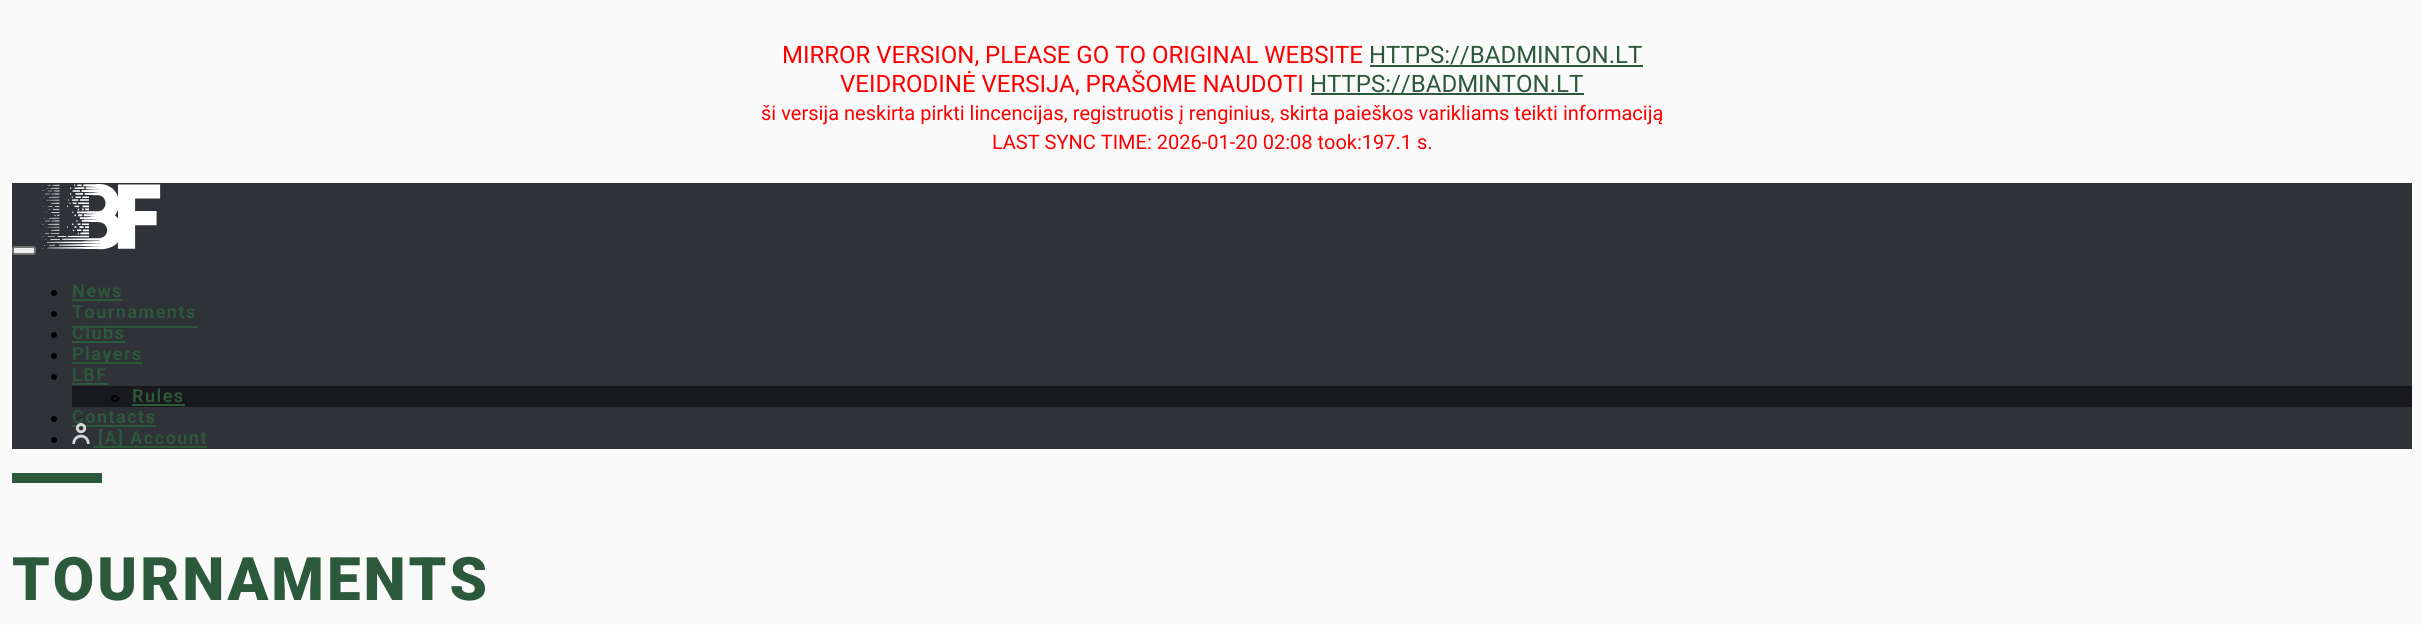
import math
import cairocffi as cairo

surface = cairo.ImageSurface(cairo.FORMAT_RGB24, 2423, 625)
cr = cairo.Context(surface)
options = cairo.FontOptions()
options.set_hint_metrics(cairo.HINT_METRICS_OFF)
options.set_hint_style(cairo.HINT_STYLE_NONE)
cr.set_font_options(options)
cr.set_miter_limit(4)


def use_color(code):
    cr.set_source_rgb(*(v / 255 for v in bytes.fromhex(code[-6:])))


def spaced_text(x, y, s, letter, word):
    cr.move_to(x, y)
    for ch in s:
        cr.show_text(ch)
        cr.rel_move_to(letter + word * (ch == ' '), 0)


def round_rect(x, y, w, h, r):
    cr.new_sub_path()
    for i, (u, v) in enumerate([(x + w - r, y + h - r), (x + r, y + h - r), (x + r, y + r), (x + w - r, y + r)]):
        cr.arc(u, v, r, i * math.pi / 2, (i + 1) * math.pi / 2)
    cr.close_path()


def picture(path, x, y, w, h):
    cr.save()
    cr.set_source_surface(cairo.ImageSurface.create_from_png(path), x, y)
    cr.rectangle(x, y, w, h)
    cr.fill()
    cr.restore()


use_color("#fafafa")
cr.paint()
cr.select_font_face("Roboto")
cr.set_font_size(24)
use_color("#ff0000")
cr.move_to(782, 63)
cr.show_text("MIRROR VERSION, PLEASE GO TO ORIGINAL WEBSITE")
use_color("#2c593c")
cr.move_to(1369, 63)
cr.show_text("HTTPS://BADMINTON.LT")
cr.rectangle(1370, 65, 273, 2)
cr.fill()
use_color("#ff0000")
cr.move_to(840, 92)
cr.show_text("VEIDRODINĖ VERSIJA, PRAŠOME NAUDOTI")
use_color("#2c593c")
cr.rectangle(1311, 93, 273, 2)
cr.fill()
cr.move_to(1310, 92)
cr.show_text("HTTPS://BADMINTON.LT")
cr.set_font_size(20)
use_color("#ff0000")
cr.move_to(761, 120)
cr.show_text("ši versija neskirta pirkti lincencijas, registruotis į renginius, skirta paieškos varikliams teikti informaciją")
cr.move_to(992, 149)
cr.show_text("LAST SYNC TIME: 2026-01-20 02:08 took:197.1 s.")
use_color("#2f3237")
cr.rectangle(12, 183, 2400, 266)
cr.fill()
use_color("#efefef")
round_rect(13, 247, 22, 7, 2)
cr.fill_preserve()
use_color("#767676")
cr.stroke()
picture("img1.png", 42, 184, 119, 66)
use_color("#000000")
cr.arc(54, 293, 3, 0, 2 * math.pi)
cr.fill()
cr.select_font_face("Roboto SemiBold")
cr.set_font_size(18)
use_color("#2c593c")
spaced_text(72, 297, "News", 1.5, 0)
cr.rectangle(72, 299, 51, 2)
cr.fill()
use_color("#000000")
cr.arc(54, 314, 3, 0, 2 * math.pi)
cr.fill()
use_color("#2c593c")
spaced_text(72, 318, "Tournaments", 1.5, 0)
cr.rectangle(72, 326, 125, 2)
cr.fill()
use_color("#000000")
cr.arc(54, 335, 3, 0, 2 * math.pi)
cr.fill()
use_color("#2c593c")
spaced_text(72, 339, "Clubs", 1.5, 0)
cr.rectangle(72, 341, 53, 2)
cr.fill()
use_color("#000000")
cr.arc(54, 356, 3, 0, 2 * math.pi)
cr.fill()
use_color("#2c593c")
cr.rectangle(72, 362, 71, 2)
cr.fill()
spaced_text(72, 360, "Players", 1.5, 0)
use_color("#000000")
cr.new_path()
cr.arc(54, 377, 3, 0, 2 * math.pi)
cr.fill()
use_color("#2c593c")
spaced_text(72, 381, "LBF", 1.5, 0)
cr.rectangle(72, 383, 36, 2)
cr.fill()
use_color("#18191c")
cr.rectangle(72, 386, 2340, 21)
cr.fill()
round_rect(112, 396, 6, 5, 2.5)
use_color("#000000")
cr.stroke()
use_color("#2c593c")
spaced_text(132, 402, "Rules", 1.5, 0)
cr.rectangle(132, 404, 53, 2)
cr.fill()
use_color("#000000")
cr.arc(54, 419, 3, 0, 2 * math.pi)
cr.fill()
use_color("#2c593c")
spaced_text(72, 423, "Contacts", 1.5, 0)
cr.rectangle(72, 425, 84, 2)
cr.fill()
use_color("#000000")
cr.arc(54, 440, 3, 0, 2 * math.pi)
cr.fill()
picture("img2.png", 72, 423, 18, 21)
use_color("#2c593c")
cr.rectangle(93, 446, 114, 2)
cr.fill()
spaced_text(98, 444, "[A] Account", 1.5, 0)
cr.rectangle(12, 473, 90, 10)
cr.fill()
cr.select_font_face("Roboto Black")
cr.set_font_size(60)
spaced_text(12, 600, "TOURNAMENTS", 3, 0)
surface.write_to_png("result.png")
